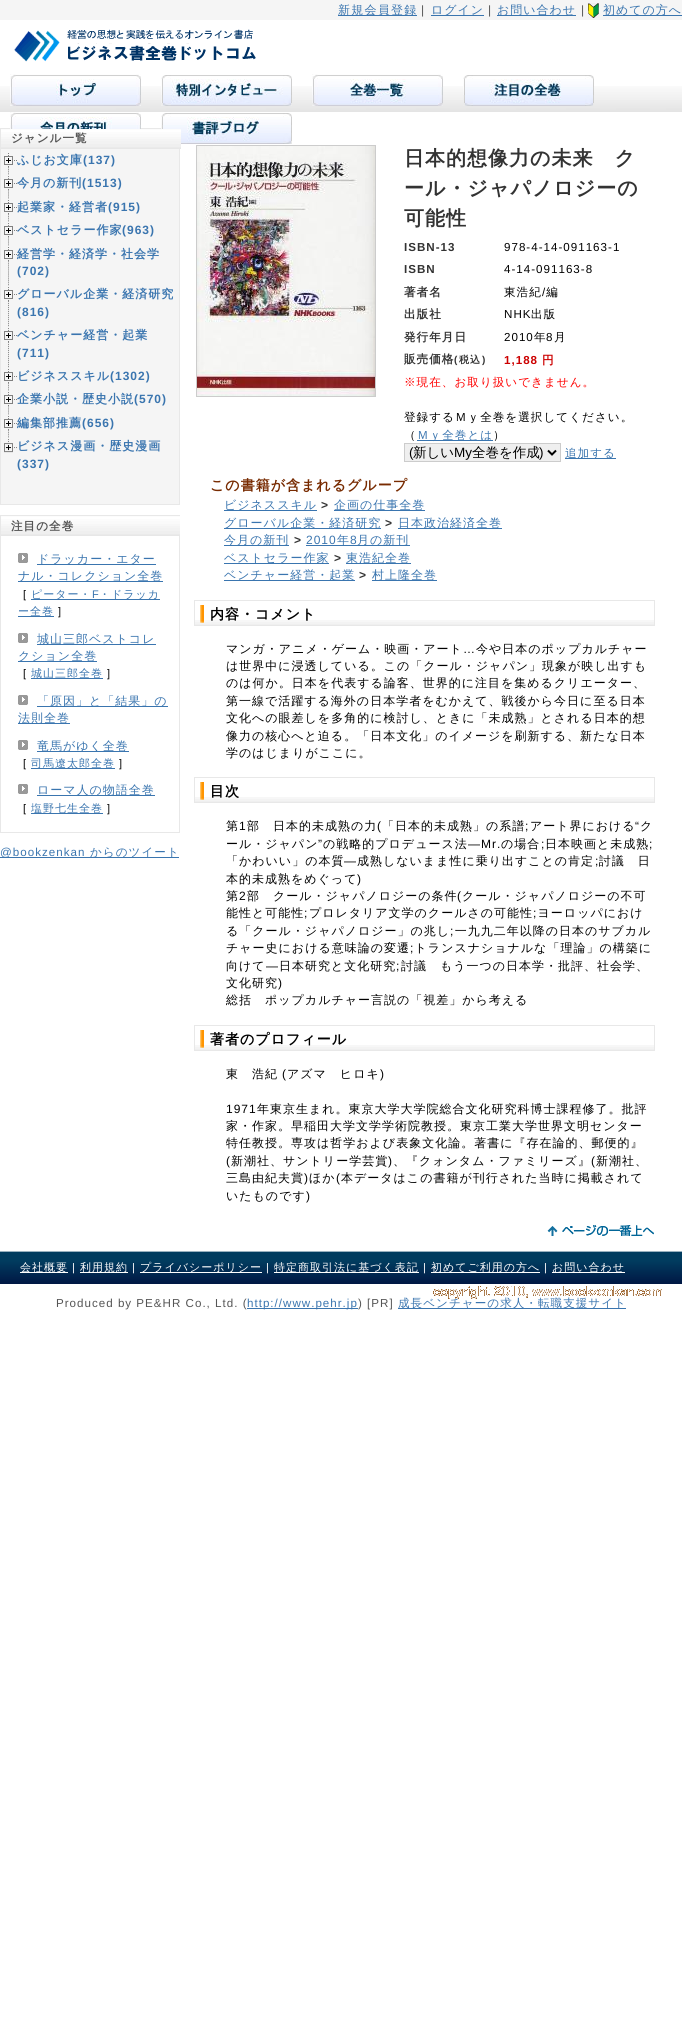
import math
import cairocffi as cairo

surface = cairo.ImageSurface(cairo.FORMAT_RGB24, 682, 2044)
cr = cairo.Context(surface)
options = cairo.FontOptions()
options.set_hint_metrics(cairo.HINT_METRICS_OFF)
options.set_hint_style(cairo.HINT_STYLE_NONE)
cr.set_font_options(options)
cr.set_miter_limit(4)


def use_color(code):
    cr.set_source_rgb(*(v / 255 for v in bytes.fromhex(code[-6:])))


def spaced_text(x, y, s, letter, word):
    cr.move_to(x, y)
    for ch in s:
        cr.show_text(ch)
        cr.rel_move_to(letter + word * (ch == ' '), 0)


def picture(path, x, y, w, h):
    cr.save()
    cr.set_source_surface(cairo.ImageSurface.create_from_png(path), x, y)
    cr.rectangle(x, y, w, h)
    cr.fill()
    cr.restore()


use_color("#ffffff")
cr.paint()
use_color("#f5f5f5")
cr.rectangle(0, 0, 682, 20)
cr.fill()
use_color("#3a75af")
cr.rectangle(338, 15, 79, 1)
cr.fill()
cr.select_font_face("WenQuanYi Zen Hei Medium")
cr.set_font_size(12)
spaced_text(338, 14, "新規会員登録", 1.25, 0)
cr.select_font_face("Liberation Sans")
use_color("#555555")
spaced_text(421, 14, "|", 1.25, 0)
use_color("#3a75af")
cr.rectangle(431, 15, 53, 1)
cr.fill()
cr.select_font_face("WenQuanYi Zen Hei Medium")
spaced_text(431, 14, "ログイン", 1, 0)
cr.select_font_face("Liberation Sans")
use_color("#555555")
spaced_text(488, 14, "|", 1, 0)
use_color("#3a75af")
cr.rectangle(497, 15, 79, 1)
cr.fill()
cr.select_font_face("WenQuanYi Zen Hei Medium")
spaced_text(497, 14, "お問い合わせ", 1, 0)
cr.select_font_face("Liberation Sans")
use_color("#555555")
spaced_text(581, 14, "|", 1, 0)
picture("img1.png", 588, 3, 11, 15)
use_color("#3a75af")
cr.rectangle(603, 15, 79, 1)
cr.fill()
cr.select_font_face("WenQuanYi Zen Hei Medium")
spaced_text(603, 14, "初めての方へ", 1, 0)
picture("img2.png", 14, 29, 242, 33)
picture("img3.png", 0, 86, 682, 26)
picture("img4.png", 10, 74, 131, 32)
picture("img5.png", 161, 75, 131, 31)
picture("img6.png", 312, 74, 131, 32)
picture("img7.png", 463, 75, 131, 31)
cr.rectangle(0.5, 128.5, 179, 376)
use_color("#e8e8e8")
cr.set_line_width(1)
cr.stroke()
picture("img8.png", 10, 112, 131, 17)
picture("img9.png", 161, 113, 131, 31)
picture("img10.png", 1, 129, 180, 20)
cr.select_font_face("WenQuanYi Zen Hei", cairo.FONT_SLANT_NORMAL, cairo.FONT_WEIGHT_BOLD)
cr.set_font_size(11.6)
use_color("#555555")
spaced_text(11, 142, "ジャンル一覧", 1, 0)
use_color("#f5f5f5")
cr.rectangle(1, 149, 178, 355)
cr.fill()
picture("img11.png", 8, 153, 1, 22)
picture("img12.png", 4, 156, 13, 11)
cr.set_font_size(12)
use_color("#3a75af")
spaced_text(17, 164, "ふじお文庫", 1, 0)
cr.select_font_face("Liberation Sans", cairo.FONT_SLANT_NORMAL, cairo.FONT_WEIGHT_BOLD)
spaced_text(83, 164, "(137)", 1, 0)
picture("img13.png", 8, 176, 1, 23)
picture("img12.png", 4, 179, 13, 11)
cr.select_font_face("WenQuanYi Zen Hei", cairo.FONT_SLANT_NORMAL, cairo.FONT_WEIGHT_BOLD)
spaced_text(17, 187, "今月の新刊", 1, 0)
cr.select_font_face("Liberation Sans", cairo.FONT_SLANT_NORMAL, cairo.FONT_WEIGHT_BOLD)
spaced_text(82, 187, "(1513)", 1, 0)
picture("img11.png", 8, 200, 1, 22)
picture("img12.png", 4, 203, 13, 11)
cr.select_font_face("WenQuanYi Zen Hei", cairo.FONT_SLANT_NORMAL, cairo.FONT_WEIGHT_BOLD)
spaced_text(17, 211, "起業家・経営者", 1, 0)
cr.select_font_face("Liberation Sans", cairo.FONT_SLANT_NORMAL, cairo.FONT_WEIGHT_BOLD)
spaced_text(108, 211, "(915)", 1, 0)
picture("img13.png", 8, 223, 1, 23)
picture("img12.png", 4, 226, 13, 11)
cr.select_font_face("WenQuanYi Zen Hei", cairo.FONT_SLANT_NORMAL, cairo.FONT_WEIGHT_BOLD)
spaced_text(17, 234, "ベストセラー作家", 1, 0)
cr.select_font_face("Liberation Sans", cairo.FONT_SLANT_NORMAL, cairo.FONT_WEIGHT_BOLD)
spaced_text(122, 234, "(963)", 1, 0)
picture("img14.png", 8, 247, 1, 39)
picture("img12.png", 4, 250, 13, 11)
cr.select_font_face("WenQuanYi Zen Hei", cairo.FONT_SLANT_NORMAL, cairo.FONT_WEIGHT_BOLD)
spaced_text(17, 258, "経営学・経済学・社会学", 1, 0)
cr.select_font_face("Liberation Sans", cairo.FONT_SLANT_NORMAL, cairo.FONT_WEIGHT_BOLD)
spaced_text(17, 275, "(702)", 1, 0)
picture("img15.png", 8, 287, 1, 40)
picture("img12.png", 4, 290, 13, 11)
cr.select_font_face("WenQuanYi Zen Hei", cairo.FONT_SLANT_NORMAL, cairo.FONT_WEIGHT_BOLD)
spaced_text(17, 298, "グローバル企業・経済研究", 1, 0)
cr.select_font_face("Liberation Sans", cairo.FONT_SLANT_NORMAL, cairo.FONT_WEIGHT_BOLD)
spaced_text(17, 316, "(816)", 1, 0)
picture("img15.png", 8, 328, 1, 40)
picture("img12.png", 4, 331, 13, 11)
cr.select_font_face("WenQuanYi Zen Hei", cairo.FONT_SLANT_NORMAL, cairo.FONT_WEIGHT_BOLD)
spaced_text(17, 339, "ベンチャー経営・起業", 1, 0)
cr.select_font_face("Liberation Sans", cairo.FONT_SLANT_NORMAL, cairo.FONT_WEIGHT_BOLD)
spaced_text(17, 357, "(711)", 1, 0)
picture("img11.png", 8, 369, 1, 22)
picture("img12.png", 4, 372, 13, 11)
cr.select_font_face("WenQuanYi Zen Hei", cairo.FONT_SLANT_NORMAL, cairo.FONT_WEIGHT_BOLD)
spaced_text(17, 380, "ビジネススキル", 1, 0)
cr.select_font_face("Liberation Sans", cairo.FONT_SLANT_NORMAL, cairo.FONT_WEIGHT_BOLD)
spaced_text(110, 380, "(1302)", 1, 0)
picture("img13.png", 8, 392, 1, 23)
picture("img12.png", 4, 395, 13, 11)
cr.select_font_face("WenQuanYi Zen Hei", cairo.FONT_SLANT_NORMAL, cairo.FONT_WEIGHT_BOLD)
spaced_text(17, 403, "企業小説・歴史小説", 1, 0)
cr.select_font_face("Liberation Sans", cairo.FONT_SLANT_NORMAL, cairo.FONT_WEIGHT_BOLD)
spaced_text(134, 403, "(570)", 1, 0)
picture("img11.png", 8, 416, 1, 22)
picture("img12.png", 4, 419, 13, 11)
cr.select_font_face("WenQuanYi Zen Hei", cairo.FONT_SLANT_NORMAL, cairo.FONT_WEIGHT_BOLD)
spaced_text(17, 427, "編集部推薦", 1, 0)
cr.select_font_face("Liberation Sans", cairo.FONT_SLANT_NORMAL, cairo.FONT_WEIGHT_BOLD)
spaced_text(82, 427, "(656)", 1, 0)
picture("img16.png", 4, 439, 13, 14)
cr.select_font_face("WenQuanYi Zen Hei", cairo.FONT_SLANT_NORMAL, cairo.FONT_WEIGHT_BOLD)
spaced_text(17, 450, "ビジネス漫画・歴史漫画", 1, 0)
cr.select_font_face("Liberation Sans", cairo.FONT_SLANT_NORMAL, cairo.FONT_WEIGHT_BOLD)
spaced_text(17, 468, "(337)", 1, 0)
cr.rectangle(0.5, 515.5, 179, 317)
use_color("#e8e8e8")
cr.stroke()
picture("img17.png", 1, 516, 179, 20)
cr.select_font_face("WenQuanYi Zen Hei", cairo.FONT_SLANT_NORMAL, cairo.FONT_WEIGHT_BOLD)
cr.set_font_size(11.6)
use_color("#555555")
spaced_text(11, 530, "注目の全巻", 1, 0)
picture("img18.png", 18, 553, 10, 10)
use_color("#3a75af")
cr.rectangle(37, 564, 119, 1)
cr.fill()
cr.select_font_face("WenQuanYi Zen Hei Medium")
cr.set_font_size(12)
spaced_text(37, 563, "ドラッカー・エター", 1, 0)
cr.rectangle(18, 581, 145, 1)
cr.fill()
spaced_text(18, 580, "ナル・コレクション全巻", 1, 0)
cr.select_font_face("Liberation Sans")
cr.set_font_size(11)
use_color("#000000")
spaced_text(23, 598, "[", 1, 0)
use_color("#3a75af")
cr.rectangle(31, 599, 129, 1)
cr.fill()
cr.select_font_face("WenQuanYi Zen Hei Medium")
spaced_text(31, 598, "ピーター・", 1, 0)
cr.select_font_face("Liberation Sans")
spaced_text(92, 598, "F", 1, 0)
cr.select_font_face("WenQuanYi Zen Hei Medium")
spaced_text(99, 598, "・ドラッカ", 1, 0)
cr.rectangle(18, 616, 36, 1)
cr.fill()
spaced_text(18, 615, "ー全巻", 1, 0)
cr.select_font_face("Liberation Sans")
use_color("#000000")
spaced_text(58, 615, "]", 1, 0)
picture("img18.png", 18, 633, 10, 10)
use_color("#3a75af")
cr.rectangle(37, 644, 119, 1)
cr.fill()
cr.select_font_face("WenQuanYi Zen Hei Medium")
cr.set_font_size(12)
spaced_text(37, 643, "城山三郎ベストコレ", 1, 0)
cr.rectangle(18, 661, 79, 1)
cr.fill()
spaced_text(18, 660, "クション全巻", 1, 0)
cr.select_font_face("Liberation Sans")
cr.set_font_size(11)
use_color("#000000")
spaced_text(23, 677, "[", 1, 0)
use_color("#3a75af")
cr.rectangle(31, 678, 72, 1)
cr.fill()
cr.select_font_face("WenQuanYi Zen Hei Medium")
spaced_text(31, 677, "城山三郎全巻", 1, 0)
cr.select_font_face("Liberation Sans")
use_color("#000000")
spaced_text(107, 677, "]", 1, 0)
picture("img18.png", 18, 695, 10, 10)
use_color("#3a75af")
cr.rectangle(37, 706, 131, 1)
cr.fill()
cr.select_font_face("WenQuanYi Zen Hei Medium")
cr.set_font_size(12)
spaced_text(37, 705, "「原因」と「結果」の", 1, 0)
cr.rectangle(18, 723, 52, 1)
cr.fill()
spaced_text(18, 722, "法則全巻", 1, 0)
picture("img18.png", 18, 740, 10, 10)
cr.rectangle(37, 751, 92, 1)
cr.fill()
spaced_text(37, 750, "竜馬がゆく全巻", 1, 0)
cr.select_font_face("Liberation Sans")
cr.set_font_size(11)
use_color("#000000")
spaced_text(23, 767, "[", 1, 0)
use_color("#3a75af")
cr.rectangle(31, 768, 84, 1)
cr.fill()
cr.select_font_face("WenQuanYi Zen Hei Medium")
spaced_text(31, 767, "司馬遼太郎全巻", 1, 0)
cr.select_font_face("Liberation Sans")
use_color("#000000")
spaced_text(119, 767, "]", 1, 0)
picture("img18.png", 18, 784, 10, 10)
use_color("#3a75af")
cr.rectangle(37, 795, 118, 1)
cr.fill()
cr.select_font_face("WenQuanYi Zen Hei Medium")
cr.set_font_size(12)
spaced_text(37, 794, "ローマ人の物語全巻", 1, 0)
cr.select_font_face("Liberation Sans")
cr.set_font_size(11)
use_color("#000000")
spaced_text(23, 812, "[", 1, 0)
use_color("#3a75af")
cr.rectangle(31, 813, 72, 1)
cr.fill()
cr.select_font_face("WenQuanYi Zen Hei Medium")
spaced_text(31, 812, "塩野七生全巻", 1, 0)
cr.select_font_face("Liberation Sans")
use_color("#000000")
spaced_text(107, 812, "]", 1, 0)
use_color("#3a75af")
cr.rectangle(0, 857, 179, 1)
cr.fill()
cr.set_font_size(11.6)
spaced_text(0, 856, "@bookzenkan", 1, 0)
cr.select_font_face("WenQuanYi Zen Hei Medium")
spaced_text(90, 856, "からのツイート", 1, 0)
cr.rectangle(196.5, 145.5, 179, 251)
use_color("#cccccc")
cr.stroke()
picture("img19.png", 197, 146, 178, 250)
cr.select_font_face("WenQuanYi Zen Hei", cairo.FONT_SLANT_NORMAL, cairo.FONT_WEIGHT_BOLD)
cr.set_font_size(20)
use_color("#333333")
spaced_text(404, 165, "日本的想像力の未来　ク", 1, 0)
spaced_text(404, 195, "ール・ジャパノロジーの", 1, 0)
spaced_text(404, 225, "可能性", 1, 0)
cr.select_font_face("Liberation Sans", cairo.FONT_SLANT_NORMAL, cairo.FONT_WEIGHT_BOLD)
cr.set_font_size(11.6)
spaced_text(404, 251, "ISBN-13", 1, 0)
cr.select_font_face("Liberation Sans")
use_color("#000000")
spaced_text(504, 251, "978-4-14-091163-1", 1, 0)
cr.select_font_face("Liberation Sans", cairo.FONT_SLANT_NORMAL, cairo.FONT_WEIGHT_BOLD)
use_color("#333333")
spaced_text(404, 273, "ISBN", 1, 0)
cr.select_font_face("Liberation Sans")
use_color("#000000")
spaced_text(504, 273, "4-14-091163-8", 1, 0)
cr.select_font_face("WenQuanYi Zen Hei", cairo.FONT_SLANT_NORMAL, cairo.FONT_WEIGHT_BOLD)
use_color("#333333")
spaced_text(404, 296, "著者名", 1, 0)
cr.select_font_face("WenQuanYi Zen Hei Medium")
use_color("#000000")
spaced_text(504, 296, "東浩紀 編", 1, 0)
cr.select_font_face("Liberation Sans")
spaced_text(542, 296, "/", 1, 0)
cr.select_font_face("WenQuanYi Zen Hei", cairo.FONT_SLANT_NORMAL, cairo.FONT_WEIGHT_BOLD)
use_color("#333333")
spaced_text(404, 318, "出版社", 1, 0)
cr.select_font_face("Liberation Sans")
use_color("#000000")
spaced_text(504, 318, "NHK", 1, 0)
cr.select_font_face("WenQuanYi Zen Hei Medium")
spaced_text(531, 318, "出版", 1, 0)
cr.select_font_face("WenQuanYi Zen Hei", cairo.FONT_SLANT_NORMAL, cairo.FONT_WEIGHT_BOLD)
use_color("#333333")
spaced_text(404, 341, "発行年月日", 1, 0)
cr.select_font_face("Liberation Sans")
use_color("#000000")
spaced_text(504, 341, "2010", 1, 0)
cr.select_font_face("WenQuanYi Zen Hei Medium")
spaced_text(534, 341, "年", 1, 0)
cr.select_font_face("Liberation Sans")
spaced_text(546, 341, "8", 1, 0)
cr.select_font_face("WenQuanYi Zen Hei Medium")
spaced_text(554, 341, "月", 1, 0)
cr.select_font_face("WenQuanYi Zen Hei", cairo.FONT_SLANT_NORMAL, cairo.FONT_WEIGHT_BOLD)
use_color("#333333")
spaced_text(404, 363, "販売価格", 1, 0)
cr.select_font_face("Liberation Sans", cairo.FONT_SLANT_NORMAL, cairo.FONT_WEIGHT_BOLD)
cr.set_font_size(10)
spaced_text(454, 363, "(", 1, 0)
cr.select_font_face("WenQuanYi Zen Hei", cairo.FONT_SLANT_NORMAL, cairo.FONT_WEIGHT_BOLD)
spaced_text(459, 363, "税込", 1, 0)
cr.select_font_face("Liberation Sans", cairo.FONT_SLANT_NORMAL, cairo.FONT_WEIGHT_BOLD)
spaced_text(482, 363, ")", 1, 0)
cr.set_font_size(11.6)
use_color("#cc0000")
spaced_text(504, 364, "1,188", 1, 0)
cr.select_font_face("WenQuanYi Zen Hei", cairo.FONT_SLANT_NORMAL, cairo.FONT_WEIGHT_BOLD)
spaced_text(542, 364, "円", 1, 0)
cr.select_font_face("WenQuanYi Zen Hei Medium")
use_color("#ff0000")
spaced_text(404, 386, "※現在、お取り扱いできません。", 1, 0)
use_color("#000000")
spaced_text(404, 421, "登録するＭｙ全巻を選択してください。", 1, 0)
spaced_text(404, 439, "（", 1, 0)
use_color("#3a75af")
cr.rectangle(417, 440, 76, 1)
cr.fill()
spaced_text(417, 439, "Ｍｙ全巻とは", 1, 0)
use_color("#000000")
spaced_text(493, 439, "）", 1, 0)
use_color("#efefef")
cr.rectangle(404.5, 443.5, 156, 18)
cr.fill_preserve()
use_color("#cccccc")
cr.stroke()
cr.new_path()
cr.move_to(548, 450.5)
cr.line_to(552, 454.5)
cr.line_to(556, 450.5)
use_color("#000000")
cr.set_line_width(2)
cr.stroke()
cr.select_font_face("Liberation Sans")
cr.set_font_size(13.5)
cr.move_to(409, 457)
cr.show_text("(")
cr.select_font_face("WenQuanYi Zen Hei Medium")
cr.move_to(413, 457)
cr.show_text("新しい")
cr.select_font_face("Liberation Sans")
cr.move_to(454, 457)
cr.show_text("My")
cr.select_font_face("WenQuanYi Zen Hei Medium")
cr.move_to(472, 457)
cr.show_text("全巻を作成")
cr.select_font_face("Liberation Sans")
cr.move_to(539, 457)
cr.show_text(")")
use_color("#3a75af")
cr.rectangle(565, 458, 51, 1)
cr.fill()
cr.select_font_face("WenQuanYi Zen Hei Medium")
cr.set_font_size(11.6)
spaced_text(565, 457, "追加する", 1, 0)
cr.select_font_face("WenQuanYi Zen Hei", cairo.FONT_SLANT_NORMAL, cairo.FONT_WEIGHT_BOLD)
cr.set_font_size(14)
use_color("#782b01")
spaced_text(210, 490, "この書籍が含まれるグループ", 1, 0)
use_color("#3a75af")
cr.rectangle(224, 510, 93, 1)
cr.fill()
cr.select_font_face("WenQuanYi Zen Hei Medium")
cr.set_font_size(12)
spaced_text(224, 509, "ビジネススキル", 1, 0)
cr.select_font_face("Liberation Sans", cairo.FONT_SLANT_NORMAL, cairo.FONT_WEIGHT_BOLD)
use_color("#333333")
spaced_text(321, 509, ">", 1, 0)
use_color("#3a75af")
cr.rectangle(334, 510, 91, 1)
cr.fill()
cr.select_font_face("WenQuanYi Zen Hei Medium")
spaced_text(334, 509, "企画の仕事全巻", 1, 0)
cr.rectangle(224, 528, 157, 1)
cr.fill()
spaced_text(224, 527, "グローバル企業・経済研究", 1, 0)
cr.select_font_face("Liberation Sans", cairo.FONT_SLANT_NORMAL, cairo.FONT_WEIGHT_BOLD)
use_color("#333333")
spaced_text(385, 527, ">", 1, 0)
use_color("#3a75af")
cr.rectangle(398, 528, 104, 1)
cr.fill()
cr.select_font_face("WenQuanYi Zen Hei Medium")
spaced_text(398, 527, "日本政治経済全巻", 1, 0)
cr.rectangle(224, 545, 65, 1)
cr.fill()
spaced_text(224, 544, "今月の新刊", 1, 0)
cr.select_font_face("Liberation Sans", cairo.FONT_SLANT_NORMAL, cairo.FONT_WEIGHT_BOLD)
use_color("#333333")
spaced_text(294, 544, ">", 1, 0)
cr.select_font_face("Liberation Sans")
use_color("#3a75af")
spaced_text(306, 544, "2010", 1, 0)
cr.rectangle(306, 545, 104, 1)
cr.fill()
cr.select_font_face("WenQuanYi Zen Hei Medium")
spaced_text(337, 544, "年", 1, 0)
cr.select_font_face("Liberation Sans")
spaced_text(350, 544, "8", 1, 0)
cr.select_font_face("WenQuanYi Zen Hei Medium")
spaced_text(357, 544, "月の新刊", 1, 0)
cr.rectangle(224, 563, 105, 1)
cr.fill()
spaced_text(224, 562, "ベストセラー作家", 1, 0)
cr.select_font_face("Liberation Sans", cairo.FONT_SLANT_NORMAL, cairo.FONT_WEIGHT_BOLD)
use_color("#333333")
spaced_text(334, 562, ">", 1, 0)
use_color("#3a75af")
cr.rectangle(346, 563, 65, 1)
cr.fill()
cr.select_font_face("WenQuanYi Zen Hei Medium")
spaced_text(346, 562, "東浩紀全巻", 1, 0)
cr.rectangle(224, 580, 131, 1)
cr.fill()
spaced_text(224, 579, "ベンチャー経営・起業", 1, 0)
cr.select_font_face("Liberation Sans", cairo.FONT_SLANT_NORMAL, cairo.FONT_WEIGHT_BOLD)
use_color("#333333")
spaced_text(359, 579, ">", 1, 0)
use_color("#3a75af")
cr.rectangle(372, 580, 65, 1)
cr.fill()
cr.select_font_face("WenQuanYi Zen Hei Medium")
spaced_text(372, 579, "村上隆全巻", 1, 0)
picture("img20.png", 195, 620, 459, 5)
cr.rectangle(194.5, 600.5, 460, 25)
use_color("#e8e8e8")
cr.set_line_width(1)
cr.stroke()
picture("img21.png", 200, 605, 4, 18)
cr.select_font_face("WenQuanYi Zen Hei", cairo.FONT_SLANT_NORMAL, cairo.FONT_WEIGHT_BOLD)
cr.set_font_size(14)
use_color("#000000")
spaced_text(210, 619, "内容・コメント", 1, 0)
cr.select_font_face("WenQuanYi Zen Hei Medium")
cr.set_font_size(12)
spaced_text(226, 653, "マンガ・アニメ・ゲーム・映画・アート", 1, 0)
cr.select_font_face("Liberation Sans")
spaced_text(463, 653, "…", 1, 0)
cr.select_font_face("WenQuanYi Zen Hei Medium")
spaced_text(476, 653, "今や日本のポップカルチャー", 1, 0)
spaced_text(226, 670, "は世界中に浸透している。この「クール・ジャパン」現象が映し出すも", 1, 0)
spaced_text(226, 687, "のは何か。日本を代表する論客、世界的に注目を集めるクリエーター、", 1, 0)
spaced_text(226, 705, "第一線で活躍する海外の日本学者をむかえて、戦後から今日に至る日本", 1, 0)
spaced_text(226, 722, "文化への眼差しを多角的に検討し、ときに「未成熟」とされる日本的想", 1, 0)
spaced_text(226, 740, "像力の核心へと迫る。「日本文化」のイメージを刷新する、新たな日本", 1, 0)
spaced_text(226, 757, "学のはじまりがここに。", 1, 0)
picture("img20.png", 195, 797, 459, 5)
cr.rectangle(194.5, 777.5, 460, 25)
use_color("#e8e8e8")
cr.stroke()
picture("img21.png", 200, 782, 4, 18)
cr.select_font_face("WenQuanYi Zen Hei", cairo.FONT_SLANT_NORMAL, cairo.FONT_WEIGHT_BOLD)
cr.set_font_size(14)
use_color("#000000")
spaced_text(210, 796, "目次", 1, 0)
cr.select_font_face("WenQuanYi Zen Hei Medium")
cr.set_font_size(12)
spaced_text(226, 830, "第", 1, 0)
cr.select_font_face("Liberation Sans")
spaced_text(239, 830, "1", 1, 0)
cr.select_font_face("WenQuanYi Zen Hei Medium")
spaced_text(247, 830, "部　日本的未成熟の力", 1, 0)
cr.select_font_face("Liberation Sans")
spaced_text(377, 830, "(", 1, 0)
cr.select_font_face("WenQuanYi Zen Hei Medium")
spaced_text(382, 830, "「日本的未成熟」の系譜 アート界における", 1, 0)
cr.select_font_face("Liberation Sans")
spaced_text(635, 830, "“", 1, 0)
cr.select_font_face("WenQuanYi Zen Hei Medium")
spaced_text(640, 830, "ク", 1, 0)
cr.select_font_face("Liberation Sans")
spaced_text(525, 830, ";", 1, 0)
cr.select_font_face("WenQuanYi Zen Hei Medium")
spaced_text(226, 848, "ール・ジャパン", 1, 0)
cr.select_font_face("Liberation Sans")
spaced_text(318, 848, "”", 1, 0)
cr.select_font_face("WenQuanYi Zen Hei Medium")
spaced_text(323, 848, "の戦略的プロデュース法", 1, 0)
cr.select_font_face("Liberation Sans")
spaced_text(468, 848, "―Mr.", 1, 0)
cr.select_font_face("WenQuanYi Zen Hei Medium")
spaced_text(501, 848, "の場合 日本映画と未成熟", 1, 0)
cr.select_font_face("Liberation Sans")
spaced_text(541, 848, ";", 1, 0)
spaced_text(649, 848, ";", 1, 0)
cr.select_font_face("WenQuanYi Zen Hei Medium")
spaced_text(226, 865, "「かわいい」の本質", 1, 0)
spaced_text(357, 865, "成熟しないまま性に乗り出すことの肯定 討議　日", 1, 0)
cr.select_font_face("Liberation Sans")
spaced_text(344, 865, "―", 1, 0)
spaced_text(595, 865, ";", 1, 0)
cr.select_font_face("WenQuanYi Zen Hei Medium")
spaced_text(226, 883, "本的未成熟をめぐって", 1, 0)
cr.select_font_face("Liberation Sans")
spaced_text(357, 883, ")", 1, 0)
cr.select_font_face("WenQuanYi Zen Hei Medium")
spaced_text(226, 900, "第", 1, 0)
cr.select_font_face("Liberation Sans")
spaced_text(239, 900, "2", 1, 0)
cr.select_font_face("WenQuanYi Zen Hei Medium")
spaced_text(247, 900, "部　クール・ジャパノロジーの条件", 1, 0)
cr.select_font_face("Liberation Sans")
spaced_text(457, 900, "(", 1, 0)
cr.select_font_face("WenQuanYi Zen Hei Medium")
spaced_text(462, 900, "クール・ジャパノロジーの不可", 1, 0)
spaced_text(226, 917, "能性と可能性 プロレタリア文学のクールさの可能性 ヨーロッパにおけ", 1, 0)
cr.select_font_face("Liberation Sans")
spaced_text(304, 917, ";", 1, 0)
spaced_text(533, 917, ";", 1, 0)
cr.select_font_face("WenQuanYi Zen Hei Medium")
spaced_text(226, 935, "る「クール・ジャパノロジー」の兆し 一九九二年以降の日本のサブカル", 1, 0)
cr.select_font_face("Liberation Sans")
spaced_text(450, 935, ";", 1, 0)
cr.select_font_face("WenQuanYi Zen Hei Medium")
spaced_text(226, 952, "チャー史における意味論の変遷 トランスナショナルな「理論」の構築に", 1, 0)
cr.select_font_face("Liberation Sans")
spaced_text(410, 952, ";", 1, 0)
cr.select_font_face("WenQuanYi Zen Hei Medium")
spaced_text(226, 970, "向けて", 1, 0)
spaced_text(279, 970, "日本研究と文化研究 討議　もう一つの日本学・批評、社会学、", 1, 0)
cr.select_font_face("Liberation Sans")
spaced_text(266, 970, "―", 1, 0)
spaced_text(396, 970, ";", 1, 0)
cr.select_font_face("WenQuanYi Zen Hei Medium")
spaced_text(226, 987, "文化研究", 1, 0)
cr.select_font_face("Liberation Sans")
spaced_text(278, 987, ")", 1, 0)
cr.select_font_face("WenQuanYi Zen Hei Medium")
spaced_text(226, 1004, "総括　ポップカルチャー言説の「視差」から考える", 1, 0)
picture("img20.png", 195, 1045, 459, 5)
cr.rectangle(194.5, 1025.5, 460, 25)
use_color("#e8e8e8")
cr.stroke()
picture("img21.png", 200, 1030, 4, 18)
cr.select_font_face("WenQuanYi Zen Hei", cairo.FONT_SLANT_NORMAL, cairo.FONT_WEIGHT_BOLD)
cr.set_font_size(14)
use_color("#000000")
spaced_text(210, 1044, "著者のプロフィール", 1, 0)
cr.select_font_face("WenQuanYi Zen Hei Medium")
cr.set_font_size(12)
spaced_text(226, 1078, "東　浩紀", 1, 0)
cr.select_font_face("Liberation Sans")
spaced_text(282, 1078, "(", 1, 0)
cr.select_font_face("WenQuanYi Zen Hei Medium")
spaced_text(287, 1078, "アズマ　ヒロキ", 1, 0)
cr.select_font_face("Liberation Sans")
spaced_text(380, 1078, ")", 1, 0)
spaced_text(226, 1113, "1971", 1, 0)
cr.select_font_face("WenQuanYi Zen Hei Medium")
spaced_text(257, 1113, "年東京生まれ。東京大学大学院総合文化研究科博士課程修了。批評", 1, 0)
spaced_text(226, 1130, "家・作家。早稲田大学文学学術院教授。東京工業大学世界文明センター", 1, 0)
spaced_text(226, 1147, "特任教授。専攻は哲学および表象文化論。著書に『存在論的、郵便的』", 1, 0)
cr.select_font_face("Liberation Sans")
spaced_text(226, 1165, "(", 1, 0)
cr.select_font_face("WenQuanYi Zen Hei Medium")
spaced_text(231, 1165, "新潮社、サントリー学芸賞", 1, 0)
cr.select_font_face("Liberation Sans")
spaced_text(388, 1165, ")", 1, 0)
cr.select_font_face("WenQuanYi Zen Hei Medium")
spaced_text(393, 1165, "、『クォンタム・ファミリーズ』", 1, 0)
cr.select_font_face("Liberation Sans")
spaced_text(591, 1165, "(", 1, 0)
cr.select_font_face("WenQuanYi Zen Hei Medium")
spaced_text(596, 1165, "新潮社、", 1, 0)
spaced_text(226, 1182, "三島由紀夫賞", 1, 0)
cr.select_font_face("Liberation Sans")
spaced_text(304, 1182, ")", 1, 0)
cr.select_font_face("WenQuanYi Zen Hei Medium")
spaced_text(309, 1182, "ほか", 1, 0)
cr.select_font_face("Liberation Sans")
spaced_text(336, 1182, "(", 1, 0)
cr.select_font_face("WenQuanYi Zen Hei Medium")
spaced_text(341, 1182, "本データはこの書籍が刊行された当時に掲載されて", 1, 0)
spaced_text(226, 1200, "いたものです", 1, 0)
cr.select_font_face("Liberation Sans")
spaced_text(306, 1200, ")", 1, 0)
picture("img22.png", 547, 1225, 107, 11)
picture("img23.png", 0, 1251, 682, 33)
use_color("#ffffff")
cr.rectangle(20, 1272, 48, 1)
cr.fill()
cr.select_font_face("WenQuanYi Zen Hei Medium")
cr.set_font_size(11)
spaced_text(20, 1271, "会社概要", 1, 0)
cr.select_font_face("Liberation Sans")
spaced_text(72, 1271, "|", 1, 0)
cr.rectangle(80, 1272, 48, 1)
cr.fill()
cr.select_font_face("WenQuanYi Zen Hei Medium")
spaced_text(80, 1271, "利用規約", 1, 0)
cr.select_font_face("Liberation Sans")
spaced_text(132, 1271, "|", 1, 0)
cr.rectangle(140, 1272, 122, 1)
cr.fill()
cr.select_font_face("WenQuanYi Zen Hei Medium")
spaced_text(140, 1271, "プライバシーポリシー", 1, 0)
cr.select_font_face("Liberation Sans")
spaced_text(266, 1271, "|", 1, 0)
cr.rectangle(274, 1272, 145, 1)
cr.fill()
cr.select_font_face("WenQuanYi Zen Hei Medium")
spaced_text(274, 1271, "特定商取引法に基づく表記", 1, 0)
cr.select_font_face("Liberation Sans")
spaced_text(423, 1271, "|", 1, 0)
cr.rectangle(431, 1272, 109, 1)
cr.fill()
cr.select_font_face("WenQuanYi Zen Hei Medium")
spaced_text(431, 1271, "初めてご利用の方へ", 1, 0)
cr.select_font_face("Liberation Sans")
spaced_text(544, 1271, "|", 1, 0)
cr.rectangle(552, 1272, 73, 1)
cr.fill()
cr.select_font_face("WenQuanYi Zen Hei Medium")
spaced_text(552, 1271, "お問い合わせ", 1, 0)
picture("img24.png", 433, 1286, 229, 13)
cr.select_font_face("Liberation Sans")
cr.set_font_size(11.6)
use_color("#555555")
spaced_text(56, 1307, "Produced by PE&HR Co., Ltd. (", 1, 0)
use_color("#3a75af")
cr.rectangle(247, 1308, 111, 1)
cr.fill()
spaced_text(247, 1307, "http://www.pehr.jp", 1, 0)
use_color("#555555")
spaced_text(358, 1307, ") [PR]", 1, 0)
use_color("#3a75af")
cr.rectangle(398, 1308, 228, 1)
cr.fill()
cr.select_font_face("WenQuanYi Zen Hei Medium")
spaced_text(398, 1307, "成長ベンチャーの求人・転職支援サイト", 1, 0)
surface.write_to_png("result.png")
